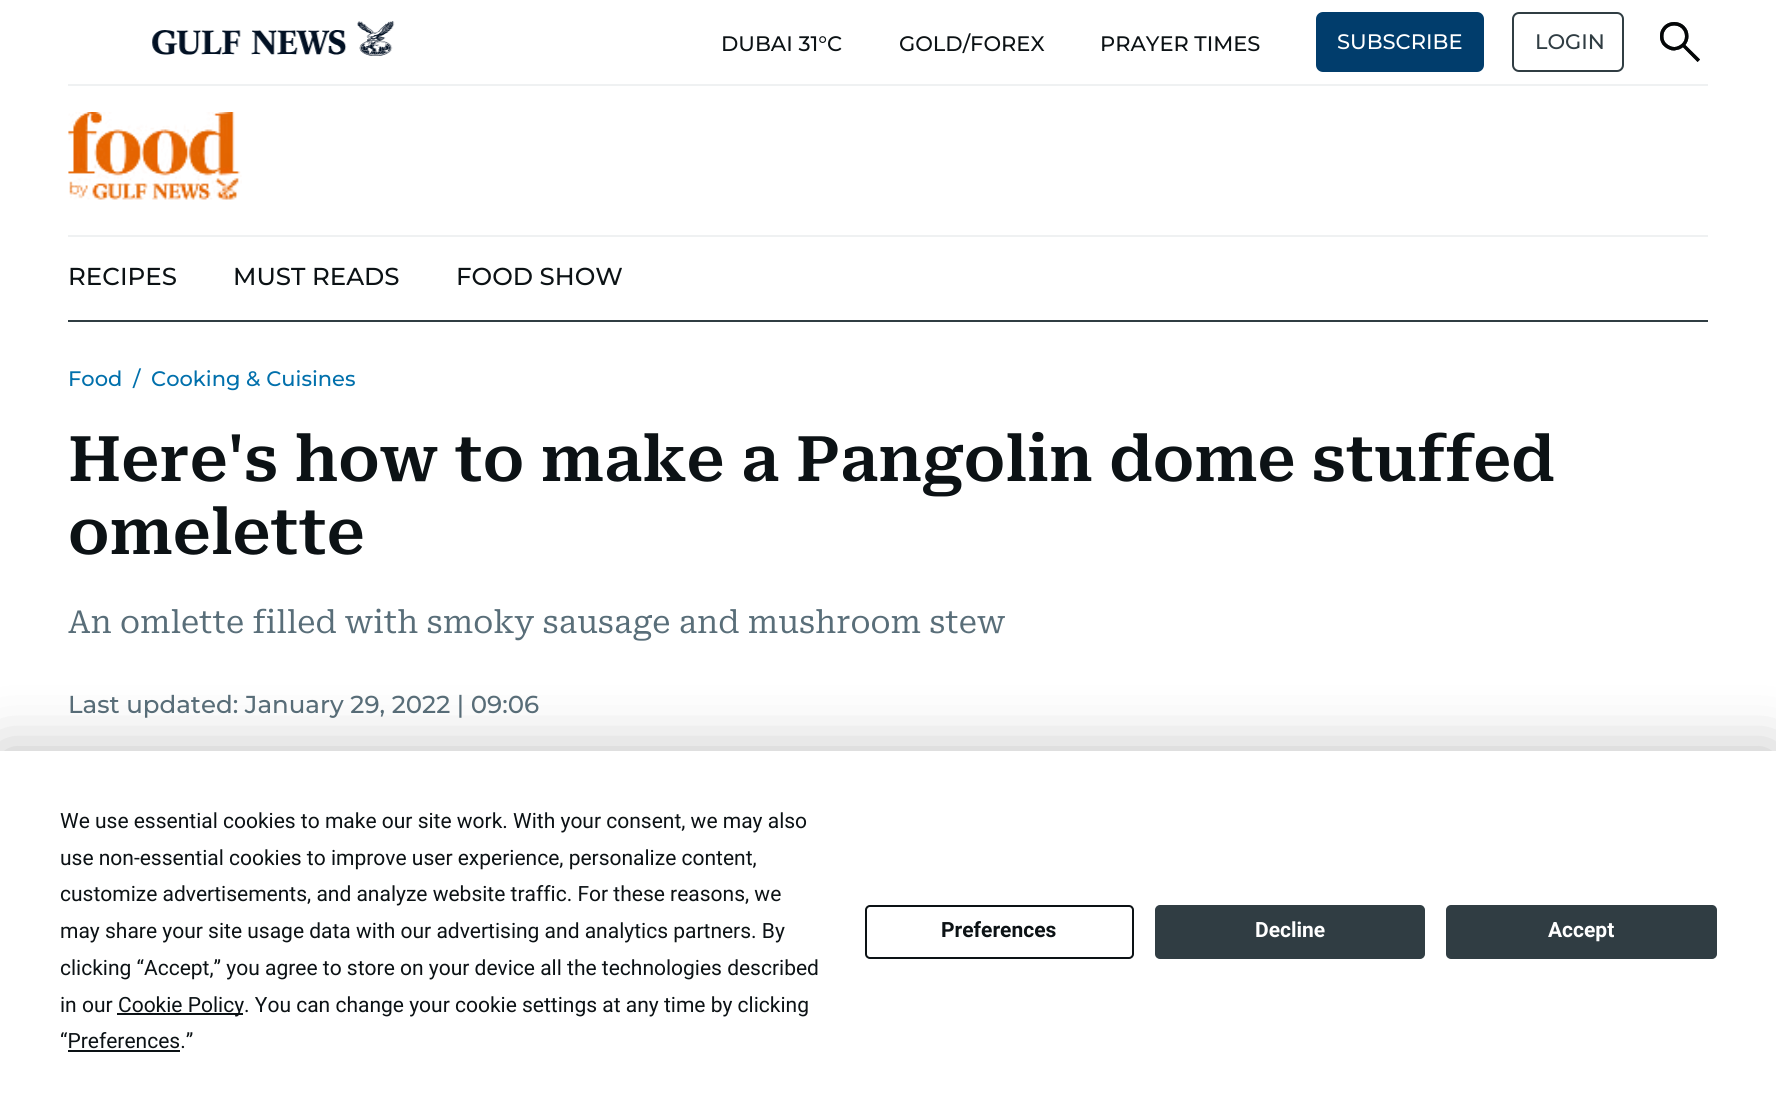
import math
import cairocffi as cairo

surface = cairo.ImageSurface(cairo.FORMAT_RGB24, 1776, 1113)
cr = cairo.Context(surface)
options = cairo.FontOptions()
options.set_hint_metrics(cairo.HINT_METRICS_OFF)
options.set_hint_style(cairo.HINT_STYLE_NONE)
cr.set_font_options(options)
cr.set_miter_limit(4)


def use_color(code):
    cr.set_source_rgb(*(v / 255 for v in bytes.fromhex(code[-6:])))


def round_rect(x, y, w, h, r):
    cr.new_sub_path()
    for i, (u, v) in enumerate([(x + w - r, y + h - r), (x + r, y + h - r), (x + r, y + r), (x + w - r, y + r)]):
        cr.arc(u, v, r, i * math.pi / 2, (i + 1) * math.pi / 2)
    cr.close_path()


def shadow(x, y, w, h, r, blur, alpha):
    cr.push_group_with_content(cairo.CONTENT_ALPHA)
    cr.set_operator(cairo.OPERATOR_SOURCE)
    for i in range(15, -16, -2):
        e = blur * i / 6
        if min(w, h) + 2 * e > 0:
            cr.set_source_rgba(0, 0, 0, alpha * math.erfc((i - 1) / 8.5) / 2)
            round_rect(x - e, y - e, w + 2 * e, h + 2 * e, max(0, min(r + e + blur * .6, min(w, h) / 2 + e)))
            cr.fill()
    cr.mask(cr.pop_group())


def picture(path, x, y, w, h):
    cr.save()
    cr.set_source_surface(cairo.ImageSurface.create_from_png(path), x, y)
    cr.rectangle(x, y, w, h)
    cr.fill()
    cr.restore()


use_color("#ffffff")
cr.paint()
use_color("#eff1f2")
cr.rectangle(68, 84, 1640, 2)
cr.fill()
picture("img1.png", 152, 21, 243, 35)
cr.select_font_face("Montserrat Thin")
cr.set_font_size(21)
use_color("#0c1215")
cr.move_to(721, 51)
cr.show_text("DUBAI 31°C")
cr.move_to(899, 51)
cr.show_text("GOLD/FOREX")
cr.move_to(1100, 51)
cr.show_text("PRAYER TIMES")
use_color("#013d6c")
round_rect(1316, 12, 168, 60, 7)
cr.fill()
use_color("#ffffff")
cr.move_to(1337, 49)
cr.show_text("SUBSCRIBE")
round_rect(1513, 13, 110, 58, 6)
use_color("#303d43")
cr.stroke()
cr.move_to(1535, 49)
cr.show_text("LOGIN")
picture("img2.png", 1660, 22, 40, 40)
cr.rectangle(68, 320, 1640, 2)
cr.fill()
picture("img3.png", 68, 112, 174, 88)
use_color("#eff1f2")
cr.rectangle(68, 235, 1640, 2)
cr.fill()
cr.set_font_size(24.5)
use_color("#0c1215")
cr.move_to(68, 285)
cr.show_text("RECIPES")
cr.move_to(233, 285)
cr.show_text("MUST READS")
cr.move_to(456, 285)
cr.show_text("FOOD SHOW")
cr.set_font_size(21)
use_color("#0170ac")
cr.move_to(68, 386)
cr.show_text("Food")
cr.move_to(133, 386)
cr.show_text("/")
cr.move_to(151, 386)
cr.show_text("Cooking & Cuisines")
cr.select_font_face("Roboto Serif SemiBold")
cr.set_font_size(63)
use_color("#0c1215")
cr.move_to(68, 481)
cr.show_text("Here's how to make a Pangolin dome stuffed")
cr.move_to(68, 554)
cr.show_text("omelette")
cr.select_font_face("Roboto Serif")
cr.set_font_size(31.5)
use_color("#596e79")
cr.move_to(68, 633)
cr.show_text("An omlette filled with smoky sausage and mushroom stew")
cr.select_font_face("Montserrat Thin")
cr.set_font_size(24.5)
cr.move_to(68, 713)
cr.show_text("Last updated: January 29, 2022 | 09:06")
use_color("#000000")
shadow(0, 751, 1776, 362, 0, 30.5, 0.25)
use_color("#ffffff")
cr.rectangle(0, 751, 1776, 362)
cr.fill()
cr.select_font_face("Roboto")
cr.set_font_size(21)
use_color("#0c1215")
cr.move_to(60, 828)
cr.show_text("We use essential cookies to make our site work. With your consent, we may also")
cr.move_to(60, 865)
cr.show_text("use non-essential cookies to improve user experience, personalize content,")
cr.move_to(60, 901)
cr.show_text("customize advertisements, and analyze website traffic. For these reasons, we")
cr.move_to(60, 938)
cr.show_text("may share your site usage data with our advertising and analytics partners. By")
cr.move_to(60, 975)
cr.show_text("clicking “Accept,” you agree to store on your device all the technologies described")
cr.move_to(60, 1012)
cr.show_text("in our")
cr.rectangle(117, 1013, 126, 2)
cr.fill()
cr.move_to(118, 1012)
cr.show_text("Cookie Policy. You can change your cookie settings at any time by clicking")
cr.move_to(60, 1048)
cr.show_text("“Preferences.”")
cr.rectangle(68, 1050, 112, 2)
cr.fill()
round_rect(866, 906, 267, 52, 4)
cr.stroke()
cr.select_font_face("Roboto", cairo.FONT_SLANT_NORMAL, cairo.FONT_WEIGHT_BOLD)
cr.move_to(941, 937)
cr.show_text("Preferences")
use_color("#303d43")
round_rect(1156, 906, 268, 52, 4)
cr.fill_preserve()
cr.stroke()
use_color("#ffffff")
cr.move_to(1255, 937)
cr.show_text("Decline")
use_color("#303d43")
round_rect(1447, 906, 269, 52, 4)
cr.fill_preserve()
cr.stroke()
use_color("#ffffff")
cr.move_to(1548, 937)
cr.show_text("Accept")
surface.write_to_png("result.png")
